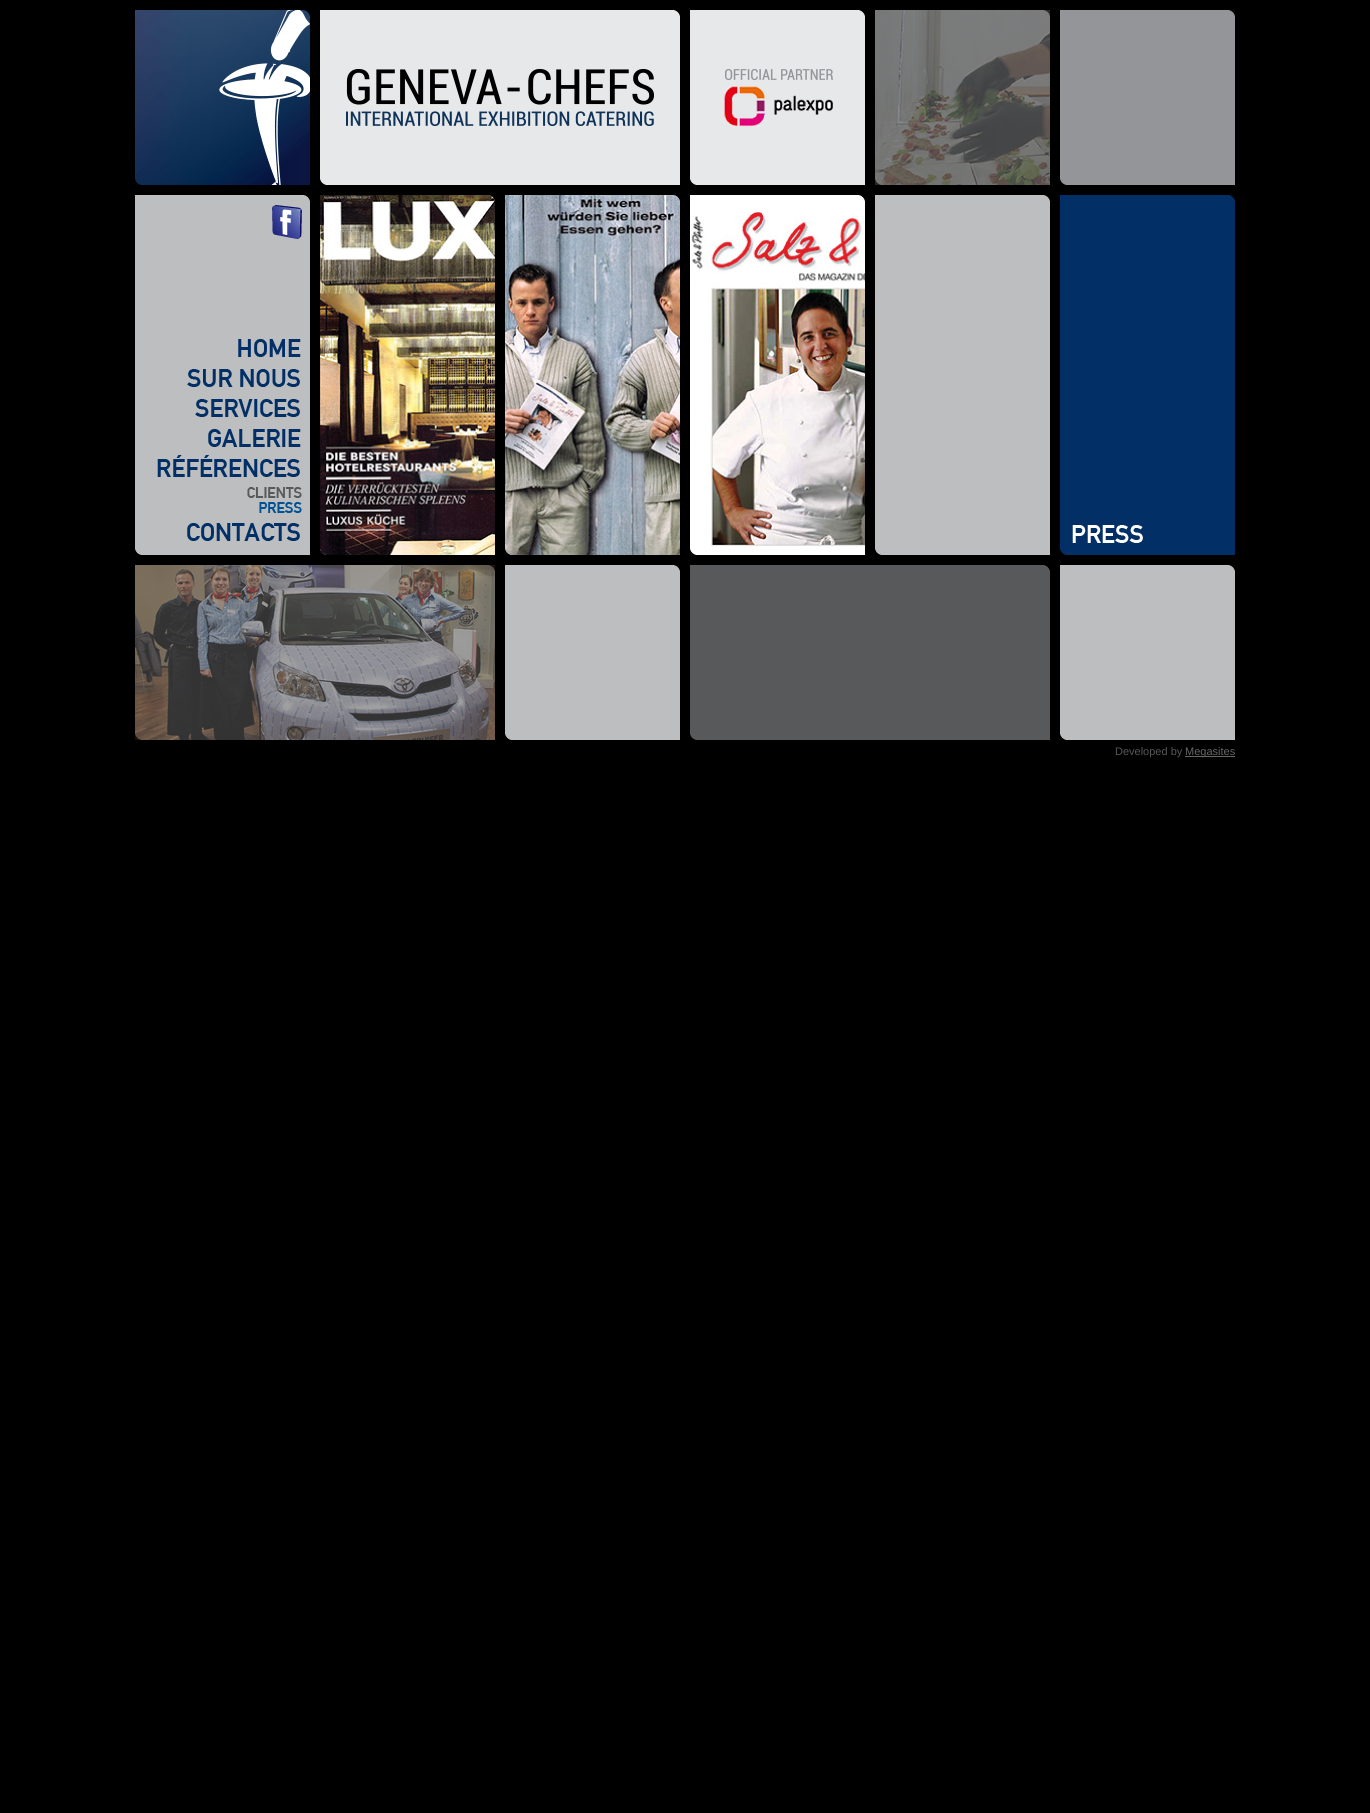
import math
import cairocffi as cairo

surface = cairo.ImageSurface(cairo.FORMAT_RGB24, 1370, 1813)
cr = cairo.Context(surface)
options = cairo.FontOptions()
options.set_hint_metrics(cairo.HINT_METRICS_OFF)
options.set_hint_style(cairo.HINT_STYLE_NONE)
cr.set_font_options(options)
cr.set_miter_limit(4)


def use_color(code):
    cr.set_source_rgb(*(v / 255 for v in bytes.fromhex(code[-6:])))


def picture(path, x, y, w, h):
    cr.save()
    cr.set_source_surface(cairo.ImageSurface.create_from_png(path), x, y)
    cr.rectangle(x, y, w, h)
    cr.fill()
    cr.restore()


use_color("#000000")
cr.paint()
picture("img1.png", 135, 10, 175, 175)
picture("img2.png", 320, 10, 360, 175)
picture("img3.png", 346, 69, 308, 57)
picture("img4.png", 690, 10, 175, 175)
picture("img5.png", 724, 69, 109, 58)
picture("img6.png", 875, 10, 175, 175)
picture("img7.png", 875, 10, 175, 175)
picture("img8.png", 875, 10, 175, 175)
picture("img9.png", 1060, 10, 175, 175)
picture("img10.png", 135, 195, 175, 360)
picture("img11.png", 272, 205, 30, 34)
picture("img12.png", 238, 339, 63, 18)
picture("img13.png", 187, 369, 113, 18)
picture("img14.png", 195, 399, 105, 18)
picture("img15.png", 208, 429, 93, 18)
picture("img16.png", 157, 455, 143, 22)
picture("img17.png", 247, 487, 55, 11)
picture("img18.png", 259, 502, 43, 11)
picture("img19.png", 187, 523, 113, 18)
picture("img20.png", 320, 195, 175, 360)
picture("img21.png", 505, 195, 175, 360)
picture("img22.png", 690, 195, 175, 360)
picture("img10.png", 875, 195, 175, 360)
picture("img23.png", 1060, 195, 175, 360)
picture("img24.png", 1072, 525, 71, 18)
picture("img25.png", 135, 565, 360, 175)
picture("img26.png", 135, 565, 360, 175)
picture("img27.png", 135, 565, 360, 175)
picture("img28.png", 505, 565, 175, 175)
picture("img25.png", 690, 565, 360, 175)
picture("img28.png", 1060, 565, 175, 175)
cr.select_font_face("Liberation Sans")
cr.set_font_size(11)
use_color("#575757")
cr.move_to(1115, 755)
cr.show_text("Developed by")
use_color("#666666")
cr.rectangle(1185, 756, 50, 1)
cr.fill()
cr.move_to(1185, 755)
cr.show_text("Megasites")
surface.write_to_png("result.png")
